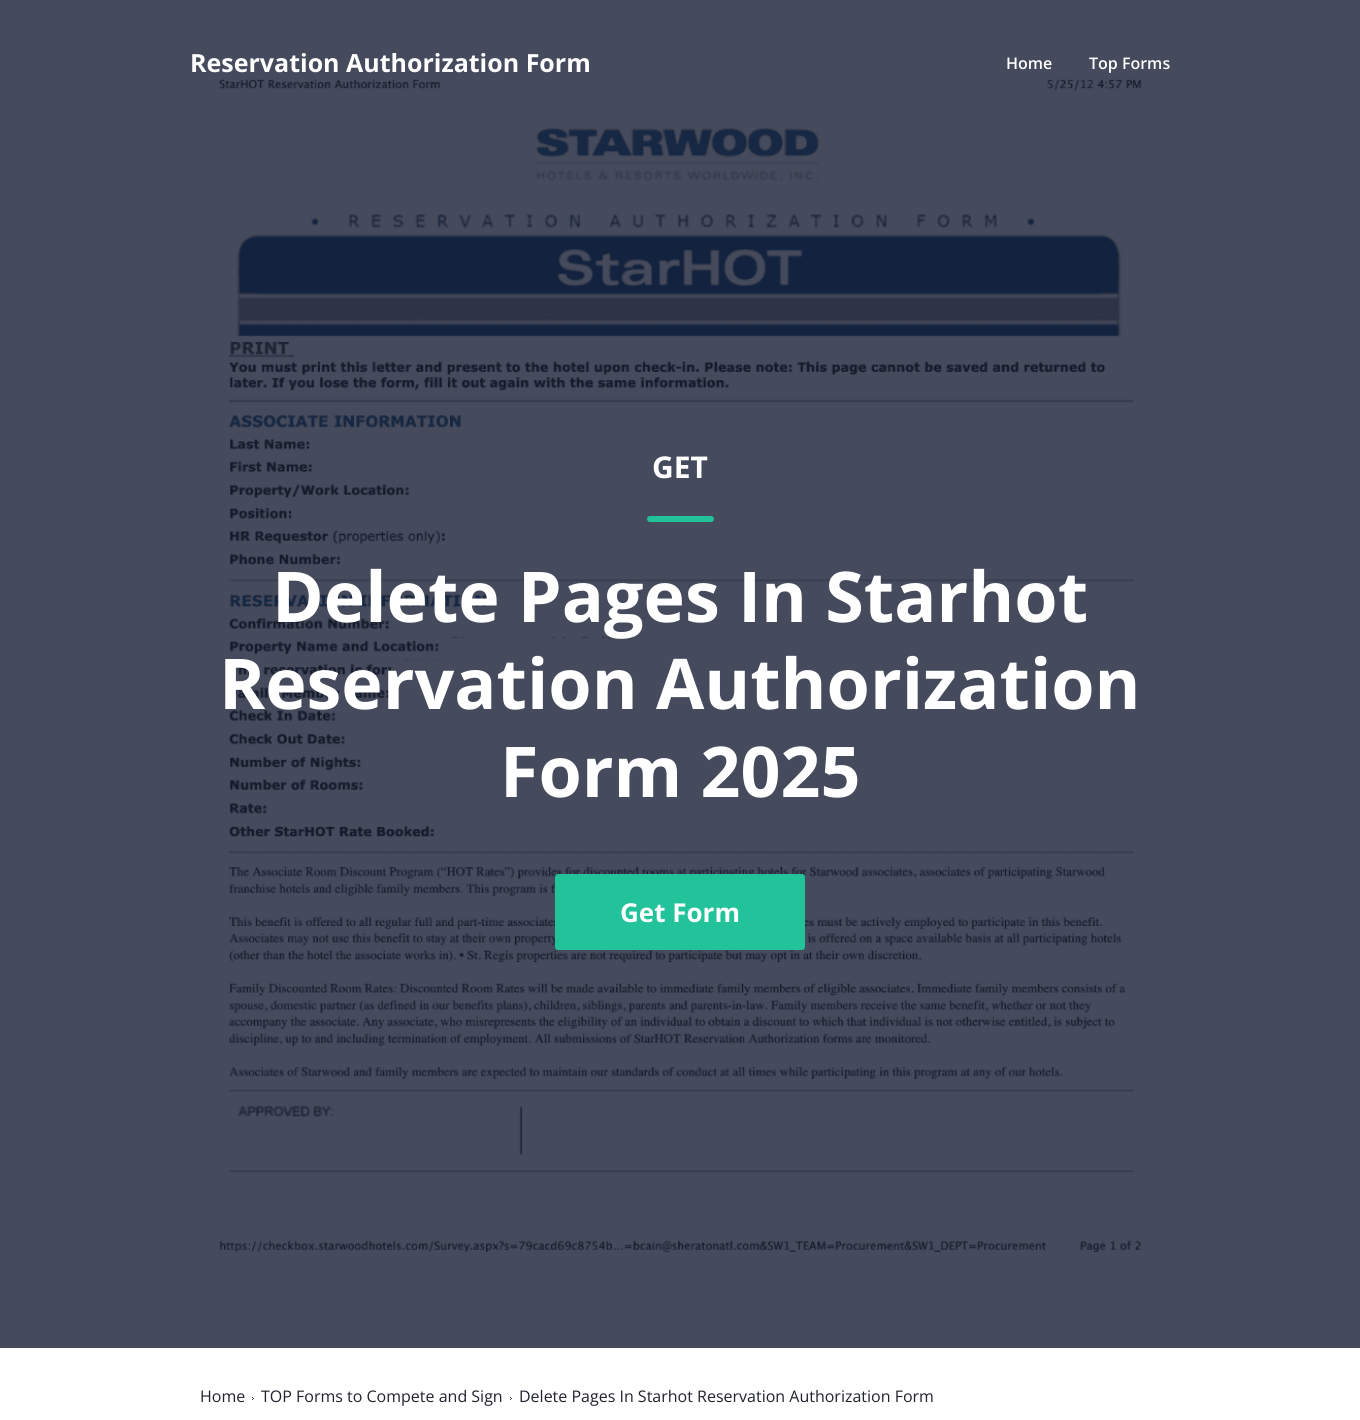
import math
import cairocffi as cairo

surface = cairo.ImageSurface(cairo.FORMAT_RGB24, 1360, 1420)
cr = cairo.Context(surface)
options = cairo.FontOptions()
options.set_hint_metrics(cairo.HINT_METRICS_OFF)
options.set_hint_style(cairo.HINT_STYLE_NONE)
cr.set_font_options(options)
cr.set_miter_limit(4)


def use_color(code):
    cr.set_source_rgb(*(v / 255 for v in bytes.fromhex(code[-6:])))


def round_rect(x, y, w, h, r):
    cr.new_sub_path()
    for i, (u, v) in enumerate([(x + w - r, y + h - r), (x + r, y + h - r), (x + r, y + r), (x + w - r, y + r)]):
        cr.arc(u, v, r, i * math.pi / 2, (i + 1) * math.pi / 2)
    cr.close_path()


def picture(path, x, y, w, h):
    cr.save()
    cr.set_source_surface(cairo.ImageSurface.create_from_png(path), x, y)
    cr.rectangle(x, y, w, h)
    cr.fill()
    cr.restore()


use_color("#ffffff")
cr.paint()
use_color("#454b5c")
cr.rectangle(0, 0, 1360, 1348)
cr.fill()
cr.select_font_face("Open Sans", cairo.FONT_SLANT_NORMAL, cairo.FONT_WEIGHT_BOLD)
cr.set_font_size(25)
use_color("#ffffff")
cr.move_to(190, 72)
cr.show_text("Reservation Authorization Form")
cr.select_font_face("Open Sans SemiBold")
cr.set_font_size(16)
cr.move_to(1006, 69)
cr.show_text("Home")
cr.move_to(1089, 69)
cr.show_text("Top Forms")
picture("img1.png", 218, 79, 924, 1174)
cr.select_font_face("Open Sans", cairo.FONT_SLANT_NORMAL, cairo.FONT_WEIGHT_BOLD)
cr.set_font_size(30)
cr.move_to(652, 478)
cr.show_text("GET")
use_color("#22c29a")
round_rect(647, 516, 67, 6, 3)
cr.fill()
cr.set_font_size(70)
use_color("#ffffff")
cr.move_to(272, 622)
cr.show_text("Delete Pages In Starhot")
cr.move_to(219, 709)
cr.show_text("Reservation Authorization")
cr.move_to(500, 797)
cr.show_text("Form 2025")
use_color("#22c29a")
round_rect(555, 874, 250, 76, 3)
cr.fill()
cr.set_font_size(26)
use_color("#ffffff")
cr.move_to(620, 922)
cr.show_text("Get Form")
cr.select_font_face("Open Sans")
cr.set_font_size(16)
use_color("#20232b")
cr.move_to(200, 1402)
cr.show_text("Home")
picture("img2.png", 252, 1397, 2, 3)
cr.move_to(261, 1402)
cr.show_text("TOP Forms to Compete and Sign")
picture("img2.png", 510, 1397, 2, 3)
cr.move_to(519, 1402)
cr.show_text("Delete Pages In Starhot Reservation Authorization Form")
surface.write_to_png("result.png")
